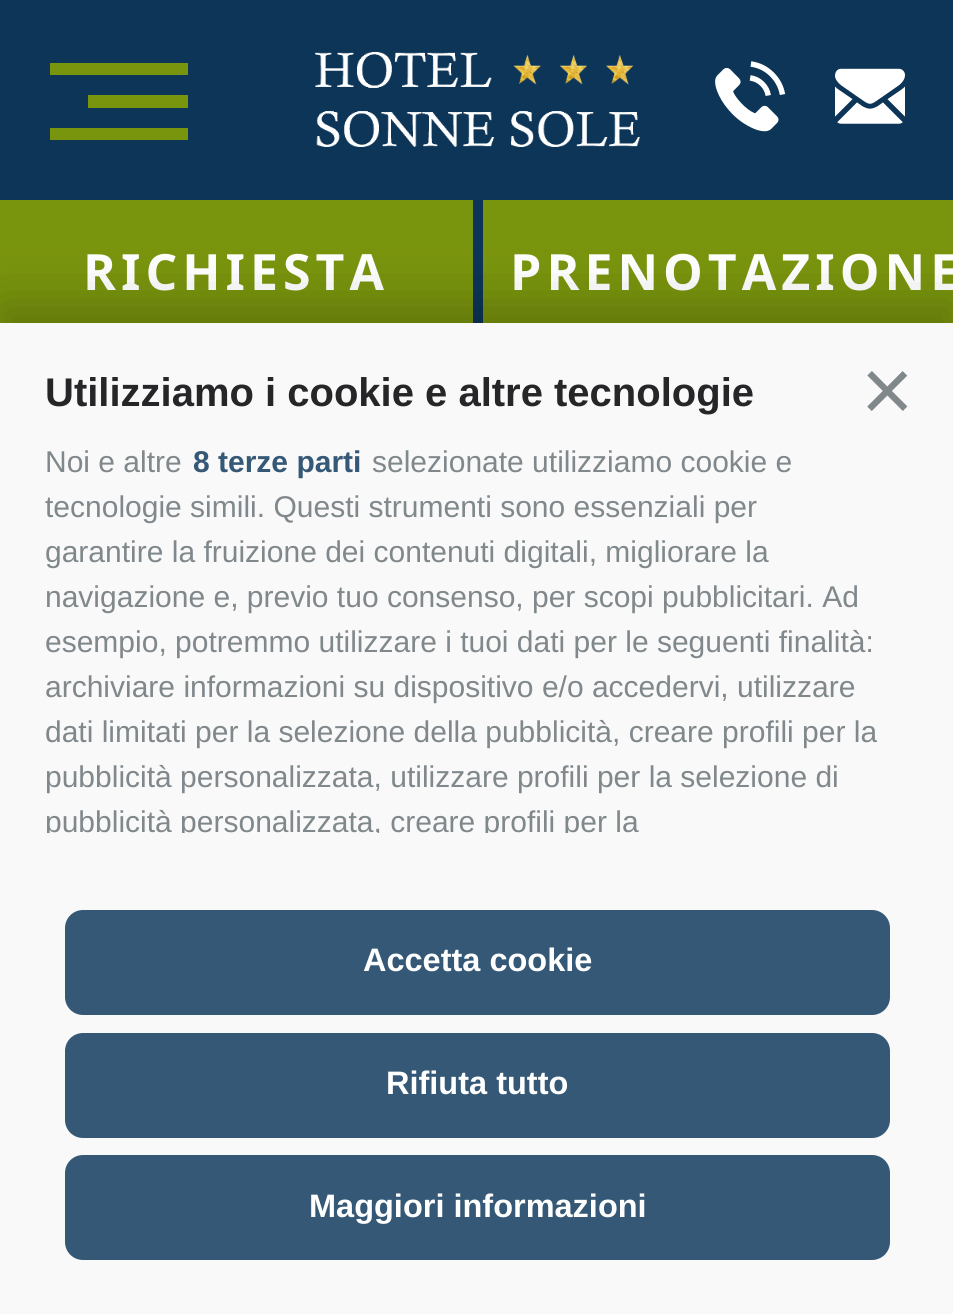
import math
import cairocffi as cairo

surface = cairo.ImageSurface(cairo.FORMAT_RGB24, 953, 1314)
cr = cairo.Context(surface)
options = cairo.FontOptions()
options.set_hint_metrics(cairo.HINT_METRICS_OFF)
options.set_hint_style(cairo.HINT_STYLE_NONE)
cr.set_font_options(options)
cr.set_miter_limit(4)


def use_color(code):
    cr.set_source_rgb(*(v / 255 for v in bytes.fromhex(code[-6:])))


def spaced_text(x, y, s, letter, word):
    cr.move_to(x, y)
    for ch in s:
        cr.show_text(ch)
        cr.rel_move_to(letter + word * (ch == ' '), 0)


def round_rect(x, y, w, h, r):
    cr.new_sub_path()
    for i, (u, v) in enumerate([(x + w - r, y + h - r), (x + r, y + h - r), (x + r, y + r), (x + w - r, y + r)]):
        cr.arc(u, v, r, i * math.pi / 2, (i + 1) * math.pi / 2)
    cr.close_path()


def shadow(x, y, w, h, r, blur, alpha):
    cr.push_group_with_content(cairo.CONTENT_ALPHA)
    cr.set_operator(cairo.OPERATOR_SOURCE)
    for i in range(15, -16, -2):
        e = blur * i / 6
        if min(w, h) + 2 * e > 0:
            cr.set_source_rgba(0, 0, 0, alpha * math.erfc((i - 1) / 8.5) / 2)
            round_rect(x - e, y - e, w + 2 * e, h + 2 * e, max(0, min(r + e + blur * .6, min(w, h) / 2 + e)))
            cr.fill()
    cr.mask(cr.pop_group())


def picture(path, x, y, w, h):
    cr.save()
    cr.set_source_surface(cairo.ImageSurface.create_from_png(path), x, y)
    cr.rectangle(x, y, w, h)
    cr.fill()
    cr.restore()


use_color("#0d3557")
cr.paint()
use_color("#79940d")
cr.rectangle(50, 63, 138, 12)
cr.fill()
cr.rectangle(88, 95, 100, 13)
cr.fill()
cr.rectangle(50, 128, 138, 12)
cr.fill()
picture("img1.png", 315, 51, 325, 96)
picture("img2.png", 715, 61, 71, 71)
picture("img3.png", 835, 68, 70, 56)
cr.rectangle(0, 200, 473, 123)
cr.fill()
cr.select_font_face("Noto Sans", cairo.FONT_SLANT_NORMAL, cairo.FONT_WEIGHT_BOLD)
cr.set_font_size(50)
use_color("#ffffff")
spaced_text(83, 290, "RICHIESTA", 5, 0)
use_color("#79940d")
cr.rectangle(483, 200, 470, 123)
cr.fill()
use_color("#ffffff")
spaced_text(510, 290, "PRENOTAZIONE", 5, 0)
use_color("#000000")
shadow(0, 303, 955, 992, 0, 25, 0.2)
use_color("#f9f9f9")
cr.rectangle(0, 323, 953, 991)
cr.fill()
cr.select_font_face("Liberation Sans", cairo.FONT_SLANT_NORMAL, cairo.FONT_WEIGHT_BOLD)
cr.set_font_size(40)
use_color("#262628")
cr.move_to(45, 406)
cr.show_text("Utilizziamo i cookie e altre tecnologie")
cr.select_font_face("Liberation Sans")
cr.set_font_size(90)
use_color("#80888c")
cr.move_to(861, 421)
cr.show_text("×")
cr.set_font_size(30)
cr.move_to(45, 472)
cr.show_text("Noi e altre")
cr.select_font_face("Liberation Sans", cairo.FONT_SLANT_NORMAL, cairo.FONT_WEIGHT_BOLD)
use_color("#345875")
cr.move_to(193, 472)
cr.show_text("8 terze parti")
cr.select_font_face("Liberation Sans")
use_color("#80888c")
cr.move_to(372, 472)
cr.show_text("selezionate utilizziamo cookie e")
cr.move_to(45, 517)
cr.show_text("tecnologie simili. Questi strumenti sono essenziali per")
cr.move_to(45, 562)
cr.show_text("garantire la fruizione dei contenuti digitali, migliorare la")
cr.move_to(45, 607)
cr.show_text("navigazione e, previo tuo consenso, per scopi pubblicitari. Ad")
cr.move_to(45, 652)
cr.show_text("esempio, potremmo utilizzare i tuoi dati per le seguenti finalità:")
cr.move_to(45, 697)
cr.show_text("archiviare informazioni su dispositivo e/o accedervi, utilizzare")
cr.move_to(45, 742)
cr.show_text("dati limitati per la selezione della pubblicità, creare profili per la")
cr.move_to(45, 787)
cr.show_text("pubblicità personalizzata, utilizzare profili per la selezione di")
cr.save()
cr.rectangle(45, 440, 865, 393)
cr.clip()
cr.move_to(45, 832)
cr.show_text("pubblicità personalizzata, creare profili per la")
cr.restore()
use_color("#345875")
round_rect(65, 910, 825, 105, 18)
cr.fill()
cr.select_font_face("Liberation Sans", cairo.FONT_SLANT_NORMAL, cairo.FONT_WEIGHT_BOLD)
cr.set_font_size(32.5)
use_color("#ffffff")
cr.move_to(363, 971)
cr.show_text("Accetta cookie")
use_color("#345875")
round_rect(65, 1033, 825, 105, 18)
cr.fill()
use_color("#ffffff")
cr.move_to(386, 1094)
cr.show_text("Rifiuta tutto")
use_color("#345875")
round_rect(65, 1155, 825, 105, 18)
cr.fill()
use_color("#ffffff")
cr.move_to(309, 1217)
cr.show_text("Maggiori informazioni")
surface.write_to_png("result.png")
